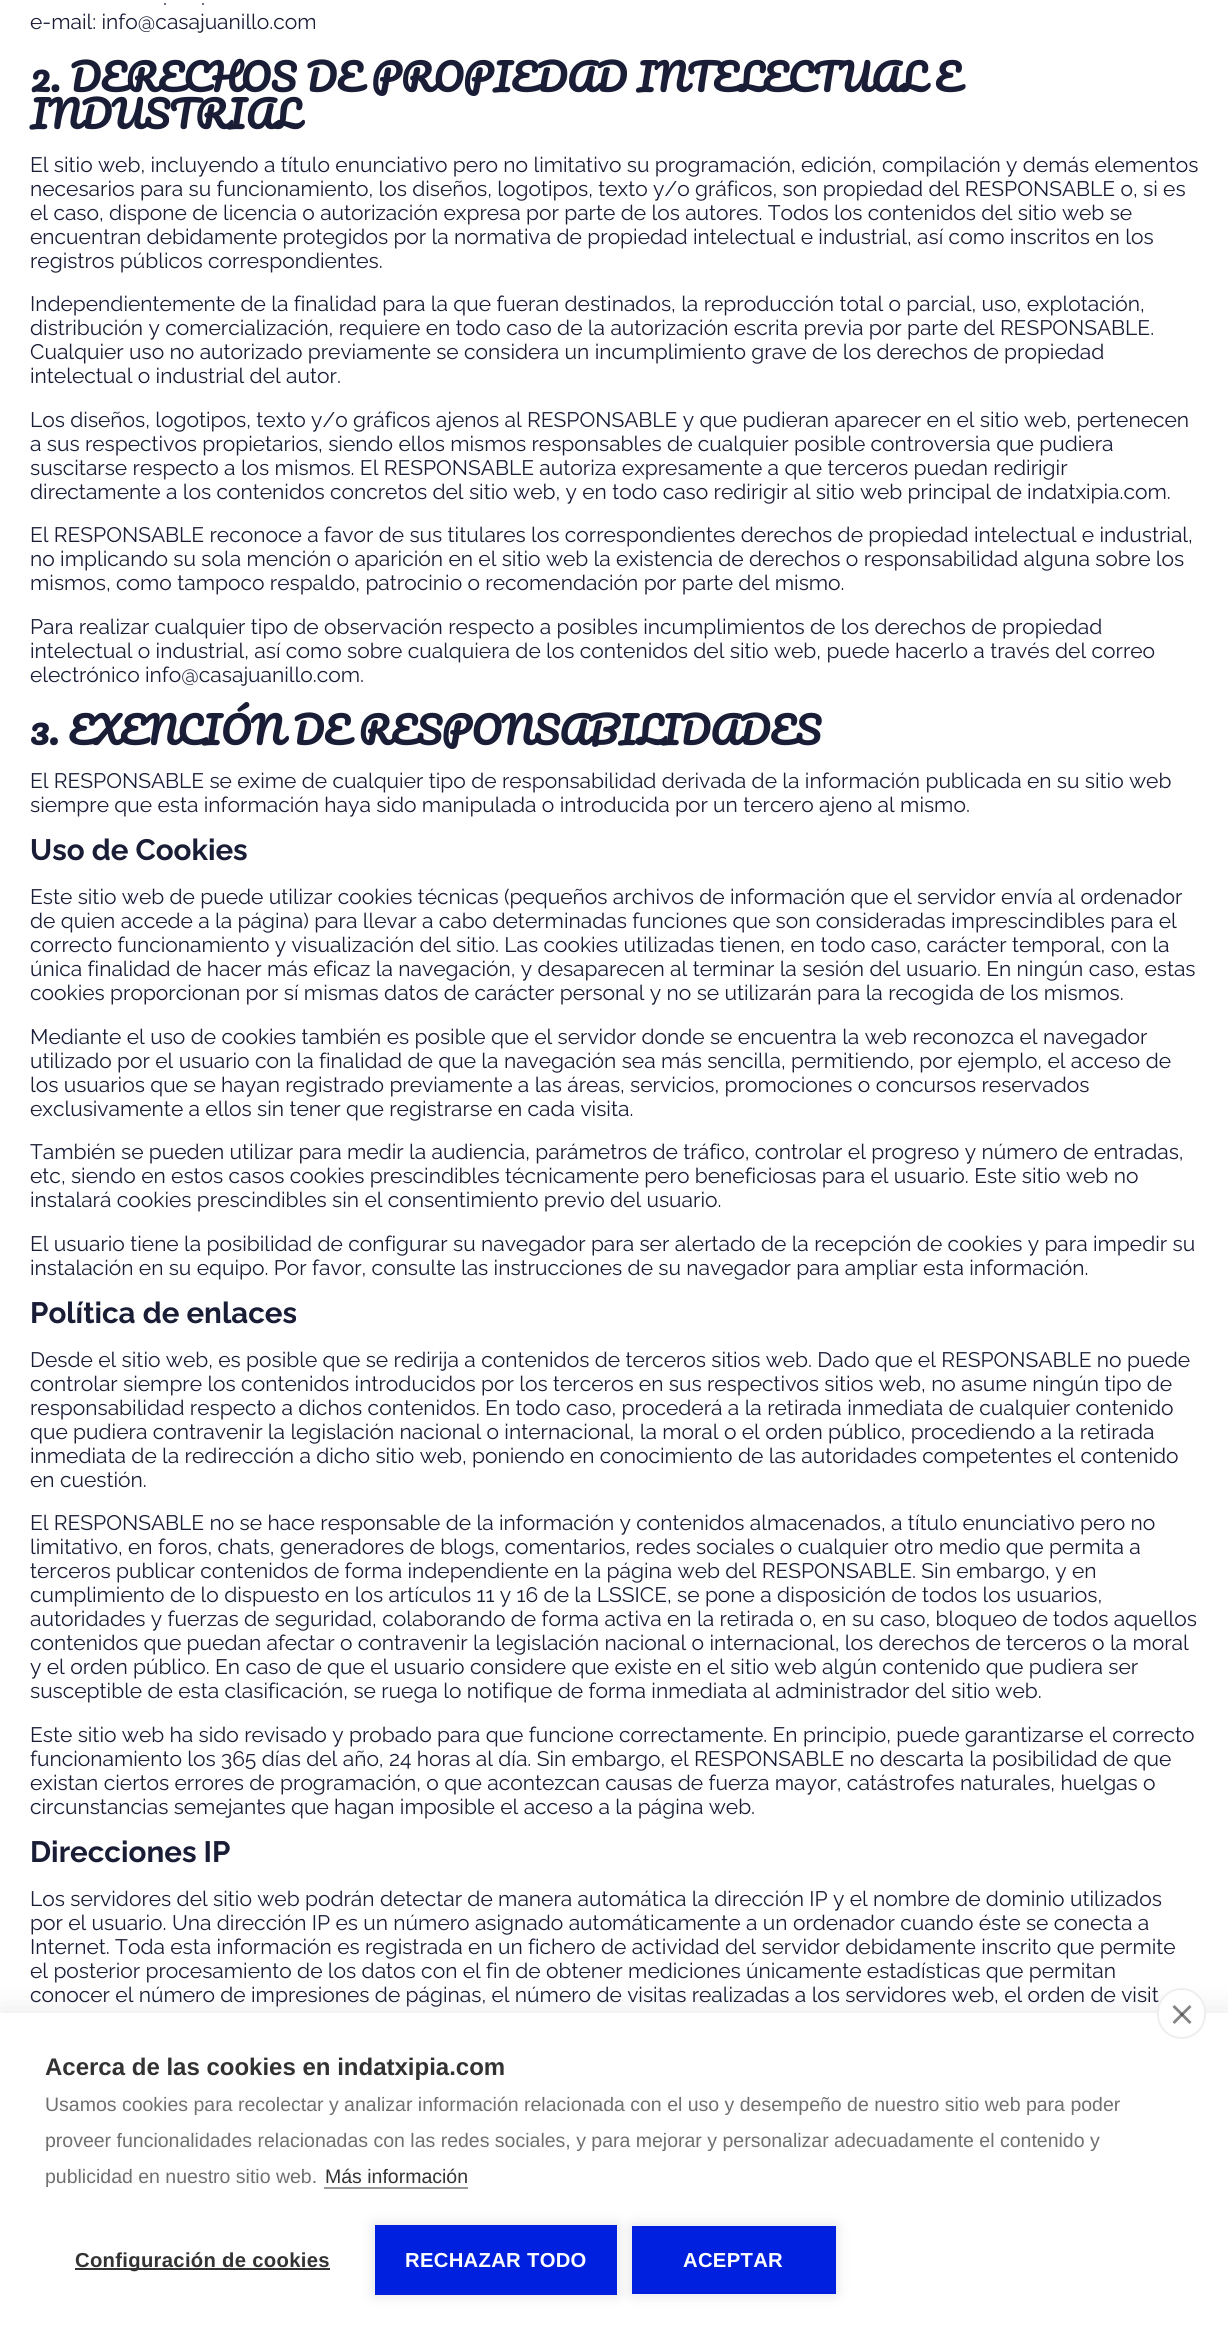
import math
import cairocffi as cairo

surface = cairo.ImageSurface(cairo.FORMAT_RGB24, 1228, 2332)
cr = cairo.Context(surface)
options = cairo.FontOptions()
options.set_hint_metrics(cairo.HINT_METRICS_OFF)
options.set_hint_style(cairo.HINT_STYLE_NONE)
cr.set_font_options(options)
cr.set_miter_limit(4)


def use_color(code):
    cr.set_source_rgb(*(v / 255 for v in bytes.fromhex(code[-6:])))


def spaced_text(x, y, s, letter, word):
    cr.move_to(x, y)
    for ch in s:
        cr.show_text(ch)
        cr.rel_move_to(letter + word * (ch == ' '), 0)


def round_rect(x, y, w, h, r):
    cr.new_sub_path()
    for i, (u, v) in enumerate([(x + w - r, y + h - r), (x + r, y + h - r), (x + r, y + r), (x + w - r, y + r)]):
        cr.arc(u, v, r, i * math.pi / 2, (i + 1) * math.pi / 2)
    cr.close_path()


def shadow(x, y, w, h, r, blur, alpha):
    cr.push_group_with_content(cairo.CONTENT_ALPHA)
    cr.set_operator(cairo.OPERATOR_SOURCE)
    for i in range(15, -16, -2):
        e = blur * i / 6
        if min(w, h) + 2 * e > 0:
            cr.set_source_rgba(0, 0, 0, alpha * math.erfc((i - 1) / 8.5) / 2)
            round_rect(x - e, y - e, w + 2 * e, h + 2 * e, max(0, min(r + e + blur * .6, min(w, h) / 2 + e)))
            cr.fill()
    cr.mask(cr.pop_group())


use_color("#ffffff")
cr.paint()
cr.select_font_face("Raleway")
cr.set_font_size(21)
use_color("#191d36")
cr.move_to(163, 5)
cr.show_text(".")
cr.move_to(201, 5)
cr.show_text(".")
cr.move_to(30, 29)
cr.show_text("e-mail: info@casajuanillo.com")
cr.select_font_face("Pacifico", cairo.FONT_SLANT_NORMAL, cairo.FONT_WEIGHT_BOLD)
cr.set_font_size(36.75)
cr.move_to(30, 92)
cr.show_text("2. DERECHOS DE PROPIEDAD INTELECTUAL E")
cr.move_to(30, 129)
cr.show_text("INDUSTRIAL")
cr.select_font_face("Raleway")
cr.set_font_size(21)
cr.move_to(30, 172)
cr.show_text("El sitio web, incluyendo a título enunciativo pero no limitativo su programación, edición, compilación y demás elementos")
cr.move_to(30, 196)
cr.show_text("necesarios para su funcionamiento, los diseños, logotipos, texto y/o gráficos, son propiedad del RESPONSABLE o, si es")
cr.move_to(30, 220)
cr.show_text("el caso, dispone de licencia o autorización expresa por parte de los autores. Todos los contenidos del sitio web se")
cr.move_to(30, 244)
cr.show_text("encuentran debidamente protegidos por la normativa de propiedad intelectual e industrial, así como inscritos en los")
cr.move_to(30, 268)
cr.show_text("registros públicos correspondientes.")
cr.move_to(30, 311)
cr.show_text("Independientemente de la finalidad para la que fueran destinados, la reproducción total o parcial, uso, explotación,")
cr.move_to(30, 335)
cr.show_text("distribución y comercialización, requiere en todo caso de la autorización escrita previa por parte del RESPONSABLE.")
cr.move_to(30, 359)
cr.show_text("Cualquier uso no autorizado previamente se considera un incumplimiento grave de los derechos de propiedad")
cr.move_to(30, 383)
cr.show_text("intelectual o industrial del autor.")
cr.move_to(30, 427)
cr.show_text("Los diseños, logotipos, texto y/o gráficos ajenos al RESPONSABLE y que pudieran aparecer en el sitio web, pertenecen")
cr.move_to(30, 451)
cr.show_text("a sus respectivos propietarios, siendo ellos mismos responsables de cualquier posible controversia que pudiera")
cr.move_to(30, 475)
cr.show_text("suscitarse respecto a los mismos. El RESPONSABLE autoriza expresamente a que terceros puedan redirigir")
cr.move_to(30, 499)
cr.show_text("directamente a los contenidos concretos del sitio web, y en todo caso redirigir al sitio web principal de indatxipia.com.")
cr.move_to(30, 542)
cr.show_text("El RESPONSABLE reconoce a favor de sus titulares los correspondientes derechos de propiedad intelectual e industrial,")
cr.move_to(30, 566)
cr.show_text("no implicando su sola mención o aparición en el sitio web la existencia de derechos o responsabilidad alguna sobre los")
cr.move_to(30, 590)
cr.show_text("mismos, como tampoco respaldo, patrocinio o recomendación por parte del mismo.")
cr.move_to(30, 634)
cr.show_text("Para realizar cualquier tipo de observación respecto a posibles incumplimientos de los derechos de propiedad")
cr.move_to(30, 658)
cr.show_text("intelectual o industrial, así como sobre cualquiera de los contenidos del sitio web, puede hacerlo a través del correo")
cr.move_to(30, 682)
cr.show_text("electrónico info@casajuanillo.com.")
cr.select_font_face("Pacifico", cairo.FONT_SLANT_NORMAL, cairo.FONT_WEIGHT_BOLD)
cr.set_font_size(36.75)
cr.move_to(30, 745)
cr.show_text("3. EXENCIÓN DE RESPONSABILIDADES")
cr.select_font_face("Raleway")
cr.set_font_size(21)
cr.move_to(30, 788)
cr.show_text("El RESPONSABLE se exime de cualquier tipo de responsabilidad derivada de la información publicada en su sitio web")
cr.move_to(30, 812)
cr.show_text("siempre que esta información haya sido manipulada o introducida por un tercero ajeno al mismo.")
cr.select_font_face("Raleway", cairo.FONT_SLANT_NORMAL, cairo.FONT_WEIGHT_BOLD)
cr.set_font_size(29.5)
cr.move_to(30, 860)
cr.show_text("Uso de Cookies")
cr.select_font_face("Raleway")
cr.set_font_size(21)
cr.move_to(30, 904)
cr.show_text("Este sitio web de puede utilizar cookies técnicas (pequeños archivos de información que el servidor envía al ordenador")
cr.move_to(30, 928)
cr.show_text("de quien accede a la página) para llevar a cabo determinadas funciones que son consideradas imprescindibles para el")
cr.move_to(30, 952)
cr.show_text("correcto funcionamiento y visualización del sitio. Las cookies utilizadas tienen, en todo caso, carácter temporal, con la")
cr.move_to(30, 976)
cr.show_text("única finalidad de hacer más eficaz la navegación, y desaparecen al terminar la sesión del usuario. En ningún caso, estas")
cr.move_to(30, 1000)
cr.show_text("cookies proporcionan por sí mismas datos de carácter personal y no se utilizarán para la recogida de los mismos.")
cr.move_to(30, 1044)
cr.show_text("Mediante el uso de cookies también es posible que el servidor donde se encuentra la web reconozca el navegador")
cr.move_to(30, 1068)
cr.show_text("utilizado por el usuario con la finalidad de que la navegación sea más sencilla, permitiendo, por ejemplo, el acceso de")
cr.move_to(30, 1092)
cr.show_text("los usuarios que se hayan registrado previamente a las áreas, servicios, promociones o concursos reservados")
cr.move_to(30, 1116)
cr.show_text("exclusivamente a ellos sin tener que registrarse en cada visita.")
cr.move_to(30, 1159)
cr.show_text("También se pueden utilizar para medir la audiencia, parámetros de tráfico, controlar el progreso y número de entradas,")
cr.move_to(30, 1183)
cr.show_text("etc, siendo en estos casos cookies prescindibles técnicamente pero beneficiosas para el usuario. Este sitio web no")
cr.move_to(30, 1207)
cr.show_text("instalará cookies prescindibles sin el consentimiento previo del usuario.")
cr.move_to(30, 1251)
cr.show_text("El usuario tiene la posibilidad de configurar su navegador para ser alertado de la recepción de cookies y para impedir su")
cr.move_to(30, 1275)
cr.show_text("instalación en su equipo. Por favor, consulte las instrucciones de su navegador para ampliar esta información.")
cr.select_font_face("Raleway", cairo.FONT_SLANT_NORMAL, cairo.FONT_WEIGHT_BOLD)
cr.set_font_size(29.5)
cr.move_to(30, 1323)
cr.show_text("Política de enlaces")
cr.select_font_face("Raleway")
cr.set_font_size(21)
cr.move_to(30, 1367)
cr.show_text("Desde el sitio web, es posible que se redirija a contenidos de terceros sitios web. Dado que el RESPONSABLE no puede")
cr.move_to(30, 1391)
cr.show_text("controlar siempre los contenidos introducidos por los terceros en sus respectivos sitios web, no asume ningún tipo de")
cr.move_to(30, 1415)
cr.show_text("responsabilidad respecto a dichos contenidos. En todo caso, procederá a la retirada inmediata de cualquier contenido")
cr.move_to(30, 1439)
cr.show_text("que pudiera contravenir la legislación nacional o internacional, la moral o el orden público, procediendo a la retirada")
cr.move_to(30, 1463)
cr.show_text("inmediata de la redirección a dicho sitio web, poniendo en conocimiento de las autoridades competentes el contenido")
cr.move_to(30, 1487)
cr.show_text("en cuestión.")
cr.move_to(30, 1530)
cr.show_text("El RESPONSABLE no se hace responsable de la información y contenidos almacenados, a título enunciativo pero no")
cr.move_to(30, 1554)
cr.show_text("limitativo, en foros, chats, generadores de blogs, comentarios, redes sociales o cualquier otro medio que permita a")
cr.move_to(30, 1578)
cr.show_text("terceros publicar contenidos de forma independiente en la página web del RESPONSABLE. Sin embargo, y en")
cr.move_to(30, 1602)
cr.show_text("cumplimiento de lo dispuesto en los artículos 11 y 16 de la LSSICE, se pone a disposición de todos los usuarios,")
cr.move_to(30, 1626)
cr.show_text("autoridades y fuerzas de seguridad, colaborando de forma activa en la retirada o, en su caso, bloqueo de todos aquellos")
cr.move_to(30, 1650)
cr.show_text("contenidos que puedan afectar o contravenir la legislación nacional o internacional, los derechos de terceros o la moral")
cr.move_to(30, 1674)
cr.show_text("y el orden público. En caso de que el usuario considere que existe en el sitio web algún contenido que pudiera ser")
cr.move_to(30, 1698)
cr.show_text("susceptible de esta clasificación, se ruega lo notifique de forma inmediata al administrador del sitio web.")
cr.move_to(30, 1742)
cr.show_text("Este sitio web ha sido revisado y probado para que funcione correctamente. En principio, puede garantizarse el correcto")
cr.move_to(30, 1766)
cr.show_text("funcionamiento los 365 días del año, 24 horas al día. Sin embargo, el RESPONSABLE no descarta la posibilidad de que")
cr.move_to(30, 1790)
cr.show_text("existan ciertos errores de programación, o que acontezcan causas de fuerza mayor, catástrofes naturales, huelgas o")
cr.move_to(30, 1814)
cr.show_text("circunstancias semejantes que hagan imposible el acceso a la página web.")
cr.select_font_face("Raleway", cairo.FONT_SLANT_NORMAL, cairo.FONT_WEIGHT_BOLD)
cr.set_font_size(29.5)
cr.move_to(30, 1862)
cr.show_text("Direcciones IP")
cr.select_font_face("Raleway")
cr.set_font_size(21)
cr.move_to(30, 1906)
cr.show_text("Los servidores del sitio web podrán detectar de manera automática la dirección IP y el nombre de dominio utilizados")
cr.move_to(30, 1930)
cr.show_text("por el usuario. Una dirección IP es un número asignado automáticamente a un ordenador cuando éste se conecta a")
cr.move_to(30, 1954)
cr.show_text("Internet. Toda esta información es registrada en un fichero de actividad del servidor debidamente inscrito que permite")
cr.move_to(30, 1978)
cr.show_text("el posterior procesamiento de los datos con el fin de obtener mediciones únicamente estadísticas que permitan")
cr.move_to(30, 2002)
cr.show_text("conocer el número de impresiones de páginas, el número de visitas realizadas a los servidores web, el orden de visit")
use_color("#000000")
shadow(0, 2013, 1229, 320, 0, 15, 0.1)
use_color("#ffffff")
cr.rectangle(0, 2013, 1228, 319)
cr.fill()
round_rect(1158, 1989, 47, 49, 23.5)
cr.fill_preserve()
use_color("#eeeeee")
cr.stroke()
use_color("#858585")
cr.new_path()
cr.move_to(1172.5, 2022)
cr.line_to(1189.5, 2005)
cr.line_to(1191.5, 2007)
cr.line_to(1174.5, 2024)
cr.close_path()
cr.fill()
cr.set_source_rgba(0.2, 0.2, 0.2, 0.6)
cr.new_path()
cr.move_to(1174.5, 2005)
cr.line_to(1191.5, 2022)
cr.line_to(1189.5, 2024)
cr.line_to(1172.5, 2007)
cr.close_path()
cr.fill()
cr.select_font_face("Liberation Sans", cairo.FONT_SLANT_NORMAL, cairo.FONT_WEIGHT_BOLD)
cr.set_font_size(24)
use_color("#333333")
cr.move_to(45, 2075)
cr.show_text("Acerca de las cookies en indatxipia.com")
cr.select_font_face("Liberation Sans")
cr.set_font_size(19.5)
use_color("#707070")
cr.move_to(45, 2111)
cr.show_text("Usamos cookies para recolectar y analizar información relacionada con el uso y desempeño de nuestro sitio web para poder")
cr.move_to(45, 2147)
cr.show_text("proveer funcionalidades relacionadas con las redes sociales, y para mejorar y personalizar adecuadamente el contenido y")
cr.move_to(45, 2183)
cr.show_text("publicidad en nuestro sitio web.")
use_color("#333333")
cr.move_to(325, 2183)
cr.show_text("Más información")
use_color("#999999")
cr.rectangle(324, 2187, 144, 2)
cr.fill()
use_color("#333333")
cr.rectangle(75, 2268, 255, 2)
cr.fill()
cr.select_font_face("Liberation Sans", cairo.FONT_SLANT_NORMAL, cairo.FONT_WEIGHT_BOLD)
cr.set_font_size(20.25)
spaced_text(75, 2267, "Configuración de cookies", 0.3, 0)
use_color("#000000")
shadow(375, 2225, 242, 70, 0, 7.5, 0.12)
use_color("#0020df")
cr.rectangle(375, 2225, 242, 70)
cr.fill()
use_color("#ffffff")
spaced_text(405, 2267, "RECHAZAR TODO", 0.3, 0)
use_color("#000000")
shadow(632, 2226, 204, 68, 0, 7.5, 0.12)
use_color("#0020df")
cr.rectangle(632, 2226, 204, 68)
cr.fill()
use_color("#ffffff")
spaced_text(683, 2267, "ACEPTAR", 0.3, 0)
surface.write_to_png("result.png")
